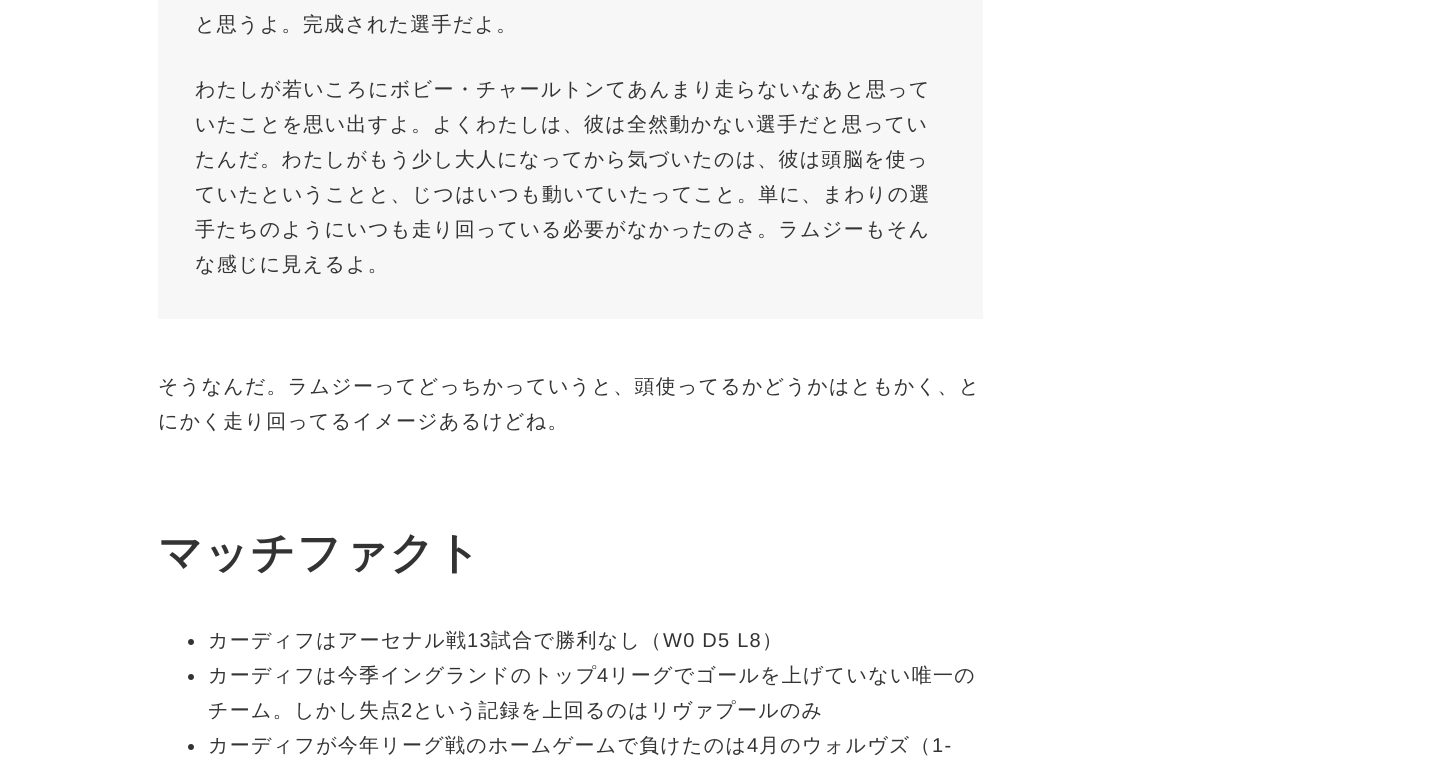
import math
import cairocffi as cairo

surface = cairo.ImageSurface(cairo.FORMAT_RGB24, 1452, 762)
cr = cairo.Context(surface)
options = cairo.FontOptions()
options.set_hint_metrics(cairo.HINT_METRICS_OFF)
options.set_hint_style(cairo.HINT_STYLE_NONE)
cr.set_font_options(options)
cr.set_miter_limit(4)


def use_color(code):
    cr.set_source_rgb(*(v / 255 for v in bytes.fromhex(code[-6:])))


def spaced_text(x, y, s, letter, word):
    cr.move_to(x, y)
    for ch in s:
        cr.show_text(ch)
        cr.rel_move_to(letter + word * (ch == ' '), 0)


use_color("#ffffff")
cr.paint()
use_color("#f7f7f7")
cr.rectangle(158, 0, 825, 319)
cr.fill()
cr.select_font_face("WenQuanYi Zen Hei Medium")
cr.set_font_size(20)
use_color("#333333")
spaced_text(195, 31, "と思うよ。完成された選手だよ。", 1.25, 0)
spaced_text(195, 96, "わたしが若いころにボビー・チャールトンてあんまり走らないなあと思って", 1.25, 0)
spaced_text(195, 131, "いたことを思い出すよ。よくわたしは、彼は全然動かない選手だと思ってい", 1.25, 0)
spaced_text(195, 166, "たんだ。わたしがもう少し大人になってから気づいたのは、彼は頭脳を使っ", 1.25, 0)
spaced_text(195, 201, "ていたということと、じつはいつも動いていたってこと。単に、まわりの選", 1.25, 0)
spaced_text(195, 236, "手たちのようにいつも走り回っている必要がなかったのさ。ラムジーもそん", 1.25, 0)
spaced_text(195, 271, "な感じに見えるよ。", 1.25, 0)
spaced_text(158, 393, "そうなんだ。ラムジーってどっちかっていうと、頭使ってるかどうかはともかく、と", 1.25, 0)
spaced_text(158, 428, "にかく走り回ってるイメージあるけどね。", 1.25, 0)
cr.select_font_face("WenQuanYi Zen Hei", cairo.FONT_SLANT_NORMAL, cairo.FONT_WEIGHT_BOLD)
cr.set_font_size(44)
spaced_text(158, 568, "マッチファクト", 1.25, 0)
cr.new_path()
cr.arc(191, 642, 3, 0, 2 * math.pi)
cr.fill()
cr.select_font_face("WenQuanYi Zen Hei Medium")
cr.set_font_size(20)
spaced_text(208, 647, "カーディフはアーセナル戦", 1.25, 0)
cr.select_font_face("Liberation Sans")
spaced_text(467, 647, "13", 1.25, 0)
cr.select_font_face("WenQuanYi Zen Hei Medium")
spaced_text(491, 647, "試合で勝利なし（", 1.25, 0)
cr.select_font_face("Liberation Sans")
spaced_text(663, 647, "W0 D5 L8", 1.25, 0)
cr.select_font_face("WenQuanYi Zen Hei Medium")
spaced_text(762, 647, "）", 1.25, 0)
cr.new_path()
cr.arc(191, 677, 3, 0, 2 * math.pi)
cr.fill()
spaced_text(208, 682, "カーディフは今季イングランドのトップ", 1.25, 0)
cr.select_font_face("Liberation Sans")
spaced_text(597, 682, "4", 1.25, 0)
cr.select_font_face("WenQuanYi Zen Hei Medium")
spaced_text(609, 682, "リーグでゴールを上げていない唯一の", 1.25, 0)
spaced_text(208, 717, "チーム。しかし失点", 1.25, 0)
cr.select_font_face("Liberation Sans")
spaced_text(401, 717, "2", 1.25, 0)
cr.select_font_face("WenQuanYi Zen Hei Medium")
spaced_text(413, 717, "という記録を上回るのはリヴァプールのみ", 1.25, 0)
cr.new_path()
cr.arc(191, 747, 3, 0, 2 * math.pi)
cr.fill()
spaced_text(208, 752, "カーディフが今年リーグ戦のホームゲームで負けたのは", 1.25, 0)
cr.select_font_face("Liberation Sans")
spaced_text(747, 752, "4", 1.25, 0)
cr.select_font_face("WenQuanYi Zen Hei Medium")
spaced_text(759, 752, "月のウォルヴズ（", 1.25, 0)
cr.select_font_face("Liberation Sans")
spaced_text(932, 752, "1-", 1.25, 0)
surface.write_to_png("result.png")
